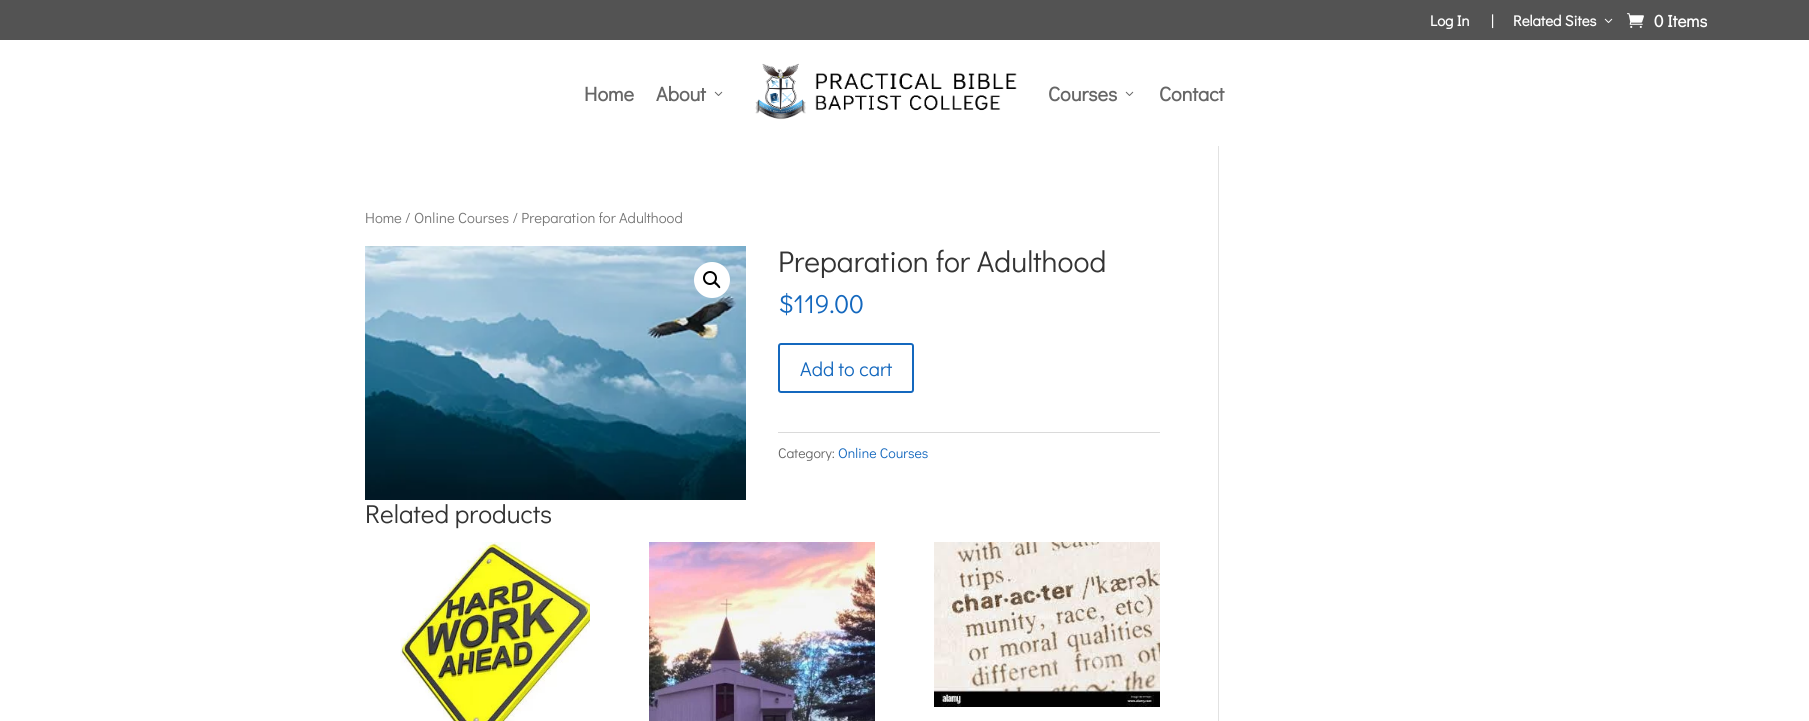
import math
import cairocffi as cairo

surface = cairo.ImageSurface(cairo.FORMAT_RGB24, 1809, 721)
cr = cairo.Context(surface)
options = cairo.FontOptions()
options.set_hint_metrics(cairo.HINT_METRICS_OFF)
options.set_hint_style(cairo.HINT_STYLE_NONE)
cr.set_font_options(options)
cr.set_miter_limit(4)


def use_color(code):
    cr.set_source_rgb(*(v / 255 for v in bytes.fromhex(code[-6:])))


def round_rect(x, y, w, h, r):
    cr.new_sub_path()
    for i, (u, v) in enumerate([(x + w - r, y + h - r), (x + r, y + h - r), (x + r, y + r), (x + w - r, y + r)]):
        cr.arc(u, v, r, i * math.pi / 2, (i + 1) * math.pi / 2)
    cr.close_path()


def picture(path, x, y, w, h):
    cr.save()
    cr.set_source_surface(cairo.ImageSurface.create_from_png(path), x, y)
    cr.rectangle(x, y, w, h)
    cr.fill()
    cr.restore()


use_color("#ffffff")
cr.paint()
use_color("#535353")
cr.rectangle(0, 0, 1809, 40)
cr.fill()
cr.select_font_face("Didact Gothic", cairo.FONT_SLANT_NORMAL, cairo.FONT_WEIGHT_BOLD)
cr.set_font_size(15)
use_color("#ffffff")
cr.move_to(1430, 26)
cr.show_text("Log In")
cr.move_to(1491, 26)
cr.show_text("|")
cr.move_to(1513, 26)
cr.show_text("Related Sites")
picture("img1.png", 1604, 18, 9, 5)
picture("img2.png", 1627, 13, 17, 15)
cr.set_font_size(17)
cr.move_to(1654, 27)
cr.show_text("0 Items")
cr.set_font_size(20)
use_color("#666666")
cr.move_to(584, 101)
cr.show_text("Home")
cr.move_to(656, 101)
cr.show_text("About")
picture("img3.png", 714, 91, 9, 5)
picture("img4.png", 755, 63, 262, 57)
cr.move_to(1048, 101)
cr.show_text("Courses")
picture("img3.png", 1125, 91, 9, 5)
cr.move_to(1159, 101)
cr.show_text("Contact")
cr.select_font_face("Didact Gothic")
cr.set_font_size(14.75)
use_color("#767676")
cr.move_to(365, 223)
cr.show_text("Home / Online Courses / Preparation for Adulthood")
picture("img5.png", 365, 246, 381, 254)
use_color("#ffffff")
cr.arc(712, 280, 18, 0, 2 * math.pi)
cr.fill()
cr.arc(710, 278, 6, 0, 2 * math.pi)
use_color("#000000")
cr.stroke()
cr.new_path()
cr.move_to(714.5, 282)
cr.curve_to(715.5, 281, 717.5, 283.5, 718, 284)
cr.curve_to(718.5, 285, 721, 286.5, 720, 288)
cr.curve_to(719, 289, 717, 286, 716.5, 285.5)
cr.curve_to(716, 285, 713, 283.5, 714.5, 282)
cr.close_path()
cr.fill()
cr.set_font_size(30)
use_color("#333333")
cr.move_to(778, 272)
cr.show_text("Preparation for Adulthood")
cr.set_font_size(26)
use_color("#1468be")
cr.move_to(778, 313)
cr.show_text("$119.00")
round_rect(779, 344, 134, 48, 2)
cr.stroke()
cr.set_font_size(20)
cr.move_to(800, 376)
cr.show_text("Add to cart")
use_color("#dadada")
cr.rectangle(778, 432, 382, 1)
cr.fill()
cr.set_font_size(14)
use_color("#666666")
cr.move_to(778, 458)
cr.show_text("Category:")
use_color("#1468be")
cr.move_to(838, 458)
cr.show_text("Online Courses")
cr.set_font_size(26)
use_color("#333333")
cr.move_to(365, 523)
cr.show_text("Related products")
picture("img6.png", 400, 542, 190, 179)
picture("img7.png", 649, 542, 226, 179)
picture("img8.png", 934, 542, 226, 165)
use_color("#e2e2e2")
cr.rectangle(1218, 146, 1, 575)
cr.fill()
surface.write_to_png("result.png")
